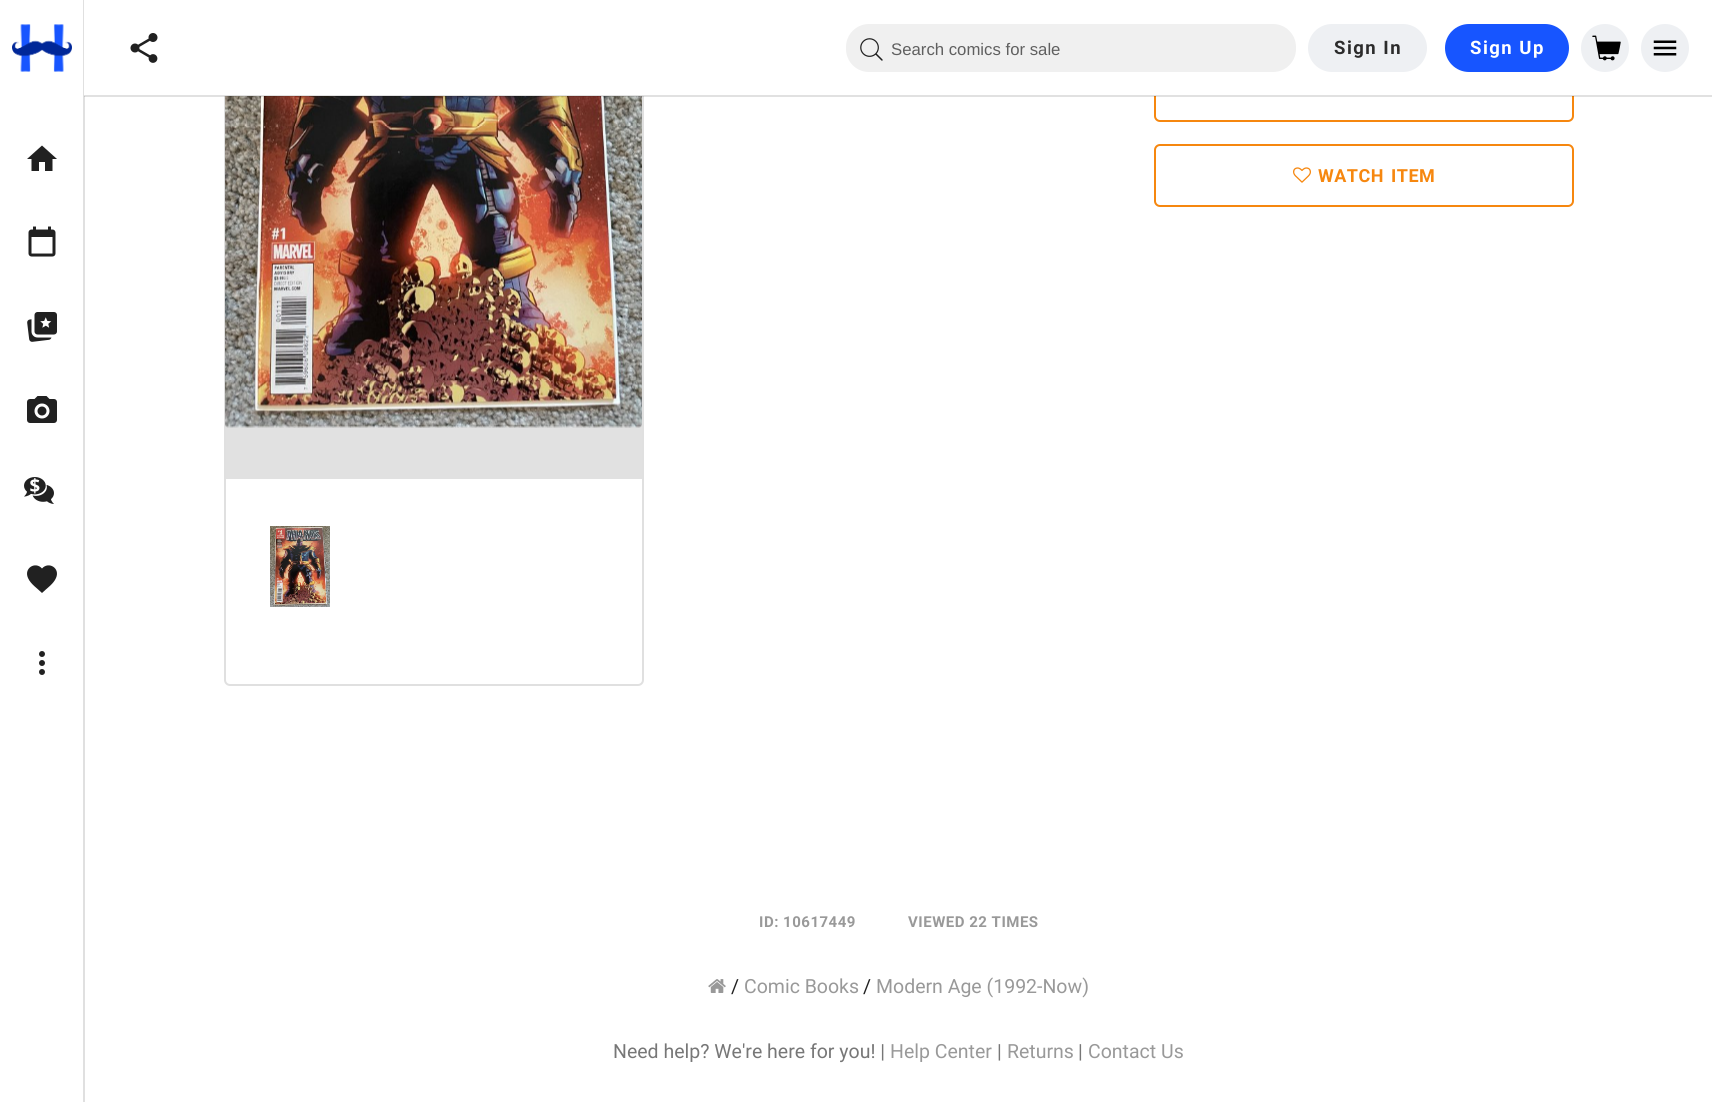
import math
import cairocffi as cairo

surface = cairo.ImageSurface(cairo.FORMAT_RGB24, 1712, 1102)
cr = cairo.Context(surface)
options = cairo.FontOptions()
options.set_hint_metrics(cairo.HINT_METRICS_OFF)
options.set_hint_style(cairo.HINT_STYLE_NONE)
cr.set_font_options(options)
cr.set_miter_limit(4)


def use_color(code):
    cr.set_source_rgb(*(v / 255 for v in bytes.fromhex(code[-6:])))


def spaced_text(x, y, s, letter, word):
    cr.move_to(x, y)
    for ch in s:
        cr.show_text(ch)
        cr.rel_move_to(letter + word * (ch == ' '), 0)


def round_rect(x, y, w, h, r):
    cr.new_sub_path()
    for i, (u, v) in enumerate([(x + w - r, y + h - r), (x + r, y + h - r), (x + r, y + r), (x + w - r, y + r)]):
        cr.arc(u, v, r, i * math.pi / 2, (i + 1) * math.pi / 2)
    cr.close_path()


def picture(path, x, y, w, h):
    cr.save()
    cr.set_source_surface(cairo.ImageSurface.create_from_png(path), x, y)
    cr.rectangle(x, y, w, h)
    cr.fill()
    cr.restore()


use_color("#ffffff")
cr.paint()
use_color("#e0e0e0")
cr.rectangle(83, 0, 2, 1102)
cr.fill()
picture("img1.png", 12, 24, 60, 48)
picture("img2.png", 27, 145, 30, 26)
picture("img3.png", 28, 226, 28, 31)
picture("img4.png", 27, 312, 30, 30)
picture("img5.png", 27, 396, 30, 27)
picture("img6.png", 24, 477, 30, 27)
use_color("#212121")
cr.new_path()
cr.move_to(42, 593)
cr.curve_to(37.5, 588.5, 30.5, 584, 28, 578)
cr.curve_to(23.5, 568, 35.5, 561, 42, 568.5)
cr.curve_to(48.5, 561, 60.5, 568, 56, 578)
cr.curve_to(53.5, 584, 46.5, 588.5, 42, 593)
cr.close_path()
cr.fill()
picture("img7.png", 39, 651, 6, 24)
round_rect(225, -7, 418, 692, 5)
use_color("#e0e0e0")
cr.stroke()
round_rect(1155, 61, 418, 60, 5)
use_color("#f6870f")
cr.stroke()
use_color("#ffffff")
cr.rectangle(84, 0, 1490, 96)
cr.fill()
use_color("#e1e1e1")
cr.rectangle(226, 96, 416, 383)
cr.fill()
picture("img12.png", 225, 96, 417, 332)
cr.set_source_rgba(0, 0, 0, 0.12)
cr.rectangle(84, 95, 1628, 2)
cr.fill()
picture("img8.png", 130, 33, 28, 30)
use_color("#f0f0f0")
round_rect(846, 24, 450, 48, 23)
cr.fill()
picture("img9.png", 860, 38, 23, 23)
cr.select_font_face("Liberation Sans")
cr.set_font_size(16.75)
use_color("#606060")
cr.move_to(891, 55)
cr.show_text("Search comics for sale")
use_color("#eef0f3")
round_rect(1308, 24, 119, 48, 24)
cr.fill()
cr.select_font_face("Roboto", cairo.FONT_SLANT_NORMAL, cairo.FONT_WEIGHT_BOLD)
cr.set_font_size(18.5)
use_color("#2c2c2c")
spaced_text(1334, 54, "Sign In", 1.5, 0)
use_color("#1755ff")
round_rect(1445, 24, 124, 48, 24)
cr.fill()
use_color("#ffffff")
spaced_text(1470, 54, "Sign Up", 1.5, 0)
use_color("#eef0f3")
cr.new_path()
cr.arc(1605, 48, 24, 0, 2 * math.pi)
cr.fill()
picture("img10.png", 1592, 35, 29, 26)
cr.arc(1665, 48, 24, 0, 2 * math.pi)
cr.fill()
picture("img11.png", 1653, 40, 24, 16)
picture("img13.png", 270, 526, 60, 81)
round_rect(1155, 145, 418, 61, 5)
use_color("#f6870f")
cr.stroke()
picture("img14.png", 1293, 167, 18, 16)
cr.set_font_size(18)
spaced_text(1318, 182, "WATCH ITEM", 0.5, 2)
cr.set_font_size(15)
use_color("#999999")
spaced_text(759, 927, "ID: 10617449", 0.5, 0)
spaced_text(908, 927, "VIEWED 22 TIMES", 0.5, 0)
picture("img15.png", 708, 979, 18, 14)
cr.select_font_face("Roboto")
cr.set_font_size(19.5)
use_color("#212121")
cr.move_to(731, 993)
cr.show_text("/")
use_color("#999999")
cr.move_to(744, 993)
cr.show_text("Comic Books")
use_color("#212121")
cr.move_to(863, 993)
cr.show_text("/")
use_color("#999999")
cr.move_to(876, 993)
cr.show_text("Modern Age (1992-Now)")
use_color("#777777")
cr.move_to(613, 1058)
cr.show_text("Need help? We're here for you! |")
use_color("#999999")
cr.move_to(890, 1058)
cr.show_text("Help Center")
use_color("#777777")
cr.move_to(997, 1058)
cr.show_text("|")
use_color("#999999")
cr.move_to(1007, 1058)
cr.show_text("Returns")
use_color("#777777")
cr.move_to(1078, 1058)
cr.show_text("|")
use_color("#999999")
cr.move_to(1088, 1058)
cr.show_text("Contact Us")
surface.write_to_png("result.png")
